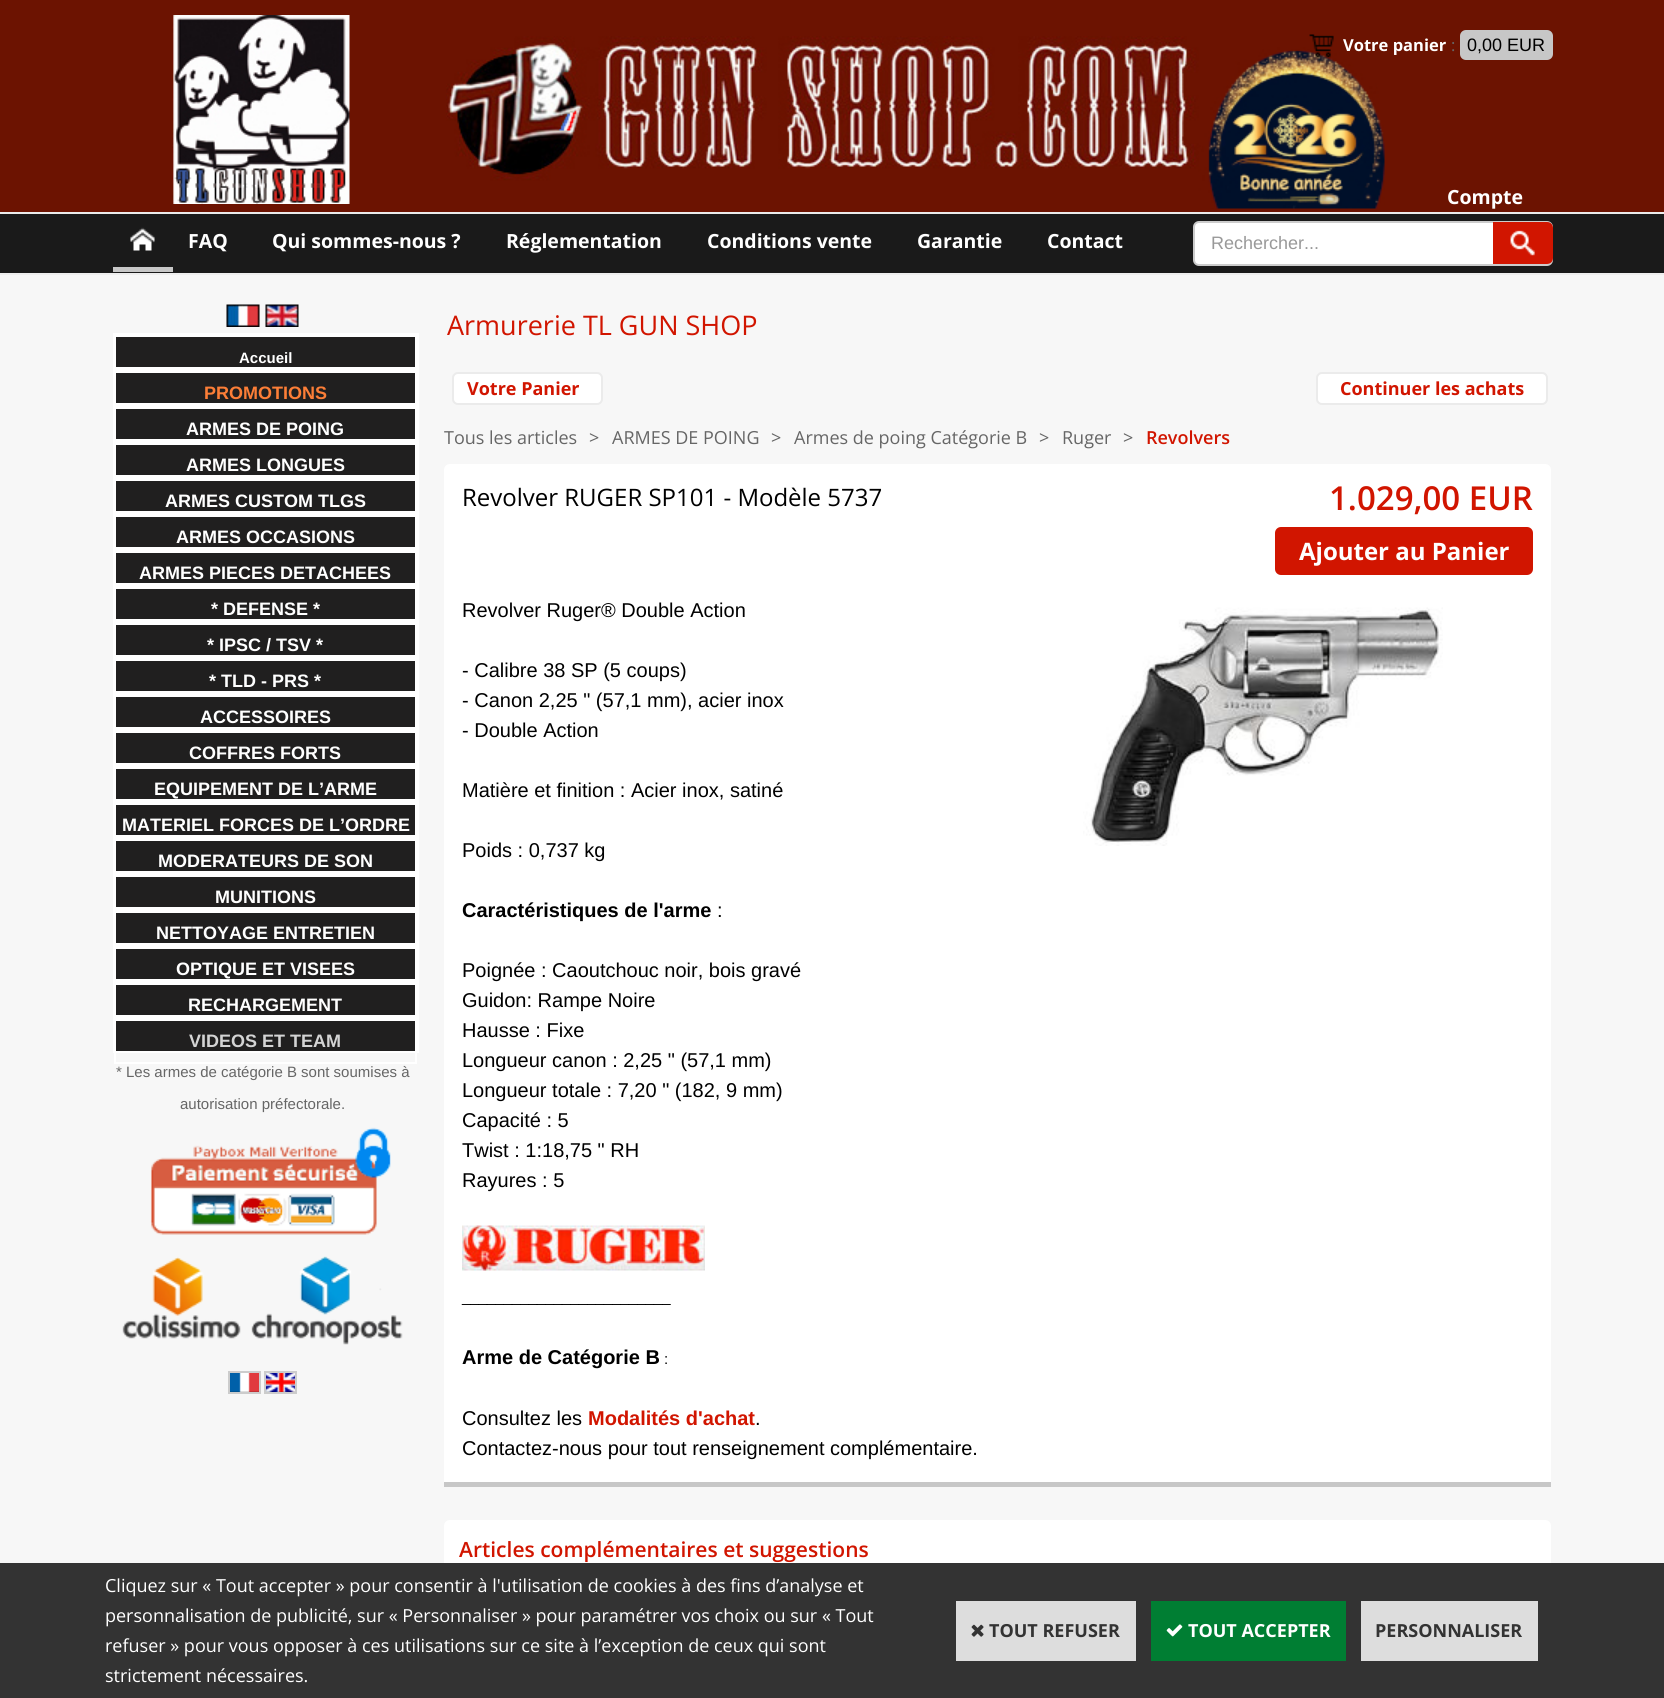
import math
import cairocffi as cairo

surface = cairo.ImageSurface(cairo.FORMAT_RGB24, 1664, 1698)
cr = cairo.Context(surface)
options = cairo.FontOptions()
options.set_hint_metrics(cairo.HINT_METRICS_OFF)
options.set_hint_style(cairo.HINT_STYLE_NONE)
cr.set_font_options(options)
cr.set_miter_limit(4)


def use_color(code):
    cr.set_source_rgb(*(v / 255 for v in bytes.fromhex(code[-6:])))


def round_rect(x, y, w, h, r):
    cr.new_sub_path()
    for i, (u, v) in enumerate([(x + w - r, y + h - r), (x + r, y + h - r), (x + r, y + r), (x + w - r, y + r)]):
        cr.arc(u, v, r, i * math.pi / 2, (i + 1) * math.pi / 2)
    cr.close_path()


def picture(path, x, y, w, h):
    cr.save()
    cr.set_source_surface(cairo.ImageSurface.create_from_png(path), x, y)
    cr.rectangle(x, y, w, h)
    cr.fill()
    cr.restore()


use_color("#1a1a1a")
cr.paint()
use_color("#eeeeee")
cr.rectangle(0, 273, 1664, 2)
cr.fill()
use_color("#6c1301")
cr.rectangle(0, 0, 1664, 212)
cr.fill()
picture("img1.png", 446, 36, 939, 173)
use_color("#ebebeb")
cr.rectangle(0, 212, 1664, 2)
cr.fill()
picture("img2.png", 172, 15, 178, 189)
picture("img3.png", 1309, 34, 25, 24)
cr.select_font_face("Open Sans", cairo.FONT_SLANT_NORMAL, cairo.FONT_WEIGHT_BOLD)
cr.set_font_size(16.5)
use_color("#ffffff")
cr.move_to(1343, 51)
cr.show_text("Votre panier")
cr.select_font_face("Open Sans")
use_color("#666666")
cr.move_to(1451, 51)
cr.show_text(":")
use_color("#c7c7c7")
round_rect(1460, 30, 93, 30, 6)
cr.fill()
cr.select_font_face("Liberation Sans")
cr.set_font_size(18)
use_color("#000000")
cr.move_to(1467, 51)
cr.show_text("0,00 EUR")
cr.select_font_face("Open Sans", cairo.FONT_SLANT_NORMAL, cairo.FONT_WEIGHT_BOLD)
cr.set_font_size(19.5)
use_color("#ffffff")
cr.move_to(188, 248)
cr.show_text("FAQ")
cr.move_to(272, 248)
cr.show_text("Qui sommes-nous ?")
cr.move_to(506, 248)
cr.show_text("Réglementation")
cr.move_to(707, 248)
cr.show_text("Conditions vente")
cr.move_to(917, 248)
cr.show_text("Garantie")
cr.move_to(1047, 248)
cr.show_text("Contact")
cr.move_to(1447, 204)
cr.show_text("Compte")
picture("img4.png", 130, 227, 25, 24)
use_color("#c7c7c7")
cr.rectangle(113, 267, 60, 5)
cr.fill()
use_color("#ffffff")
round_rect(1194, 222, 358, 43, 5)
cr.fill_preserve()
use_color("#cccccc")
cr.stroke()
use_color("#ffffff")
cr.rectangle(1196, 224, 1, 39)
cr.fill()
cr.select_font_face("Liberation Sans")
cr.set_font_size(18)
use_color("#999999")
cr.move_to(1211, 249)
cr.show_text("Rechercher...")
use_color("#d11500")
cr.new_path()
cr.move_to(1493, 222)
cr.line_to(1547, 222)
cr.curve_to(1550.5, 222, 1553, 224.5, 1553, 228)
cr.line_to(1553, 258)
cr.curve_to(1553, 261.5, 1550.5, 264, 1547, 264)
cr.line_to(1493, 264)
cr.close_path()
cr.fill()
picture("img5.png", 1510, 230, 25, 26)
use_color("#f7f7f7")
cr.rectangle(0, 275, 1664, 1288)
cr.fill()
picture("img6.png", 226, 304, 34, 23)
picture("img7.png", 265, 304, 34, 23)
use_color("#201f1f")
cr.rectangle(116, 337, 299, 30)
cr.fill()
cr.rectangle(114, 334, 304, 34)
use_color("#ffffff")
cr.stroke()
cr.rectangle(115, 336, 301, 44)
cr.stroke()
cr.select_font_face("Liberation Sans", cairo.FONT_SLANT_NORMAL, cairo.FONT_WEIGHT_BOLD)
cr.set_font_size(15)
cr.move_to(239, 363)
cr.show_text("Accueil")
use_color("#201f1f")
cr.rectangle(116, 373, 299, 30)
cr.fill()
cr.rectangle(114, 370, 304, 34)
use_color("#ffffff")
cr.stroke()
cr.rectangle(115, 372, 301, 43)
cr.stroke()
cr.set_font_size(18)
use_color("#fc7e37")
cr.move_to(204, 399)
cr.show_text("PROMOTIONS")
use_color("#201f1f")
cr.rectangle(116, 409, 299, 30)
cr.fill()
cr.rectangle(114, 406, 304, 34)
use_color("#ffffff")
cr.stroke()
cr.rectangle(115, 408, 301, 43)
cr.stroke()
cr.move_to(186, 435)
cr.show_text("ARMES DE POING")
use_color("#201f1f")
cr.rectangle(116, 445, 299, 30)
cr.fill()
cr.rectangle(114, 442, 304, 34)
use_color("#ffffff")
cr.stroke()
cr.rectangle(115, 444, 301, 43)
cr.stroke()
cr.move_to(186, 471)
cr.show_text("ARMES LONGUES")
use_color("#201f1f")
cr.rectangle(116, 481, 299, 30)
cr.fill()
cr.rectangle(114, 478, 304, 34)
use_color("#ffffff")
cr.stroke()
cr.rectangle(115, 480, 301, 43)
cr.stroke()
cr.move_to(165, 507)
cr.show_text("ARMES CUSTOM TLGS")
use_color("#201f1f")
cr.rectangle(116, 517, 299, 30)
cr.fill()
cr.rectangle(114, 514, 304, 34)
use_color("#ffffff")
cr.stroke()
cr.rectangle(115, 516, 301, 43)
cr.stroke()
cr.move_to(176, 543)
cr.show_text("ARMES OCCASIONS")
use_color("#201f1f")
cr.rectangle(116, 553, 299, 30)
cr.fill()
cr.rectangle(114, 550, 304, 34)
use_color("#ffffff")
cr.stroke()
cr.rectangle(115, 552, 301, 43)
cr.stroke()
cr.move_to(139, 579)
cr.show_text("ARMES PIECES DETACHEES")
use_color("#201f1f")
cr.rectangle(116, 589, 299, 30)
cr.fill()
cr.rectangle(114, 586, 304, 34)
use_color("#ffffff")
cr.stroke()
cr.rectangle(115, 588, 301, 43)
cr.stroke()
cr.move_to(211, 615)
cr.show_text("* DEFENSE *")
use_color("#201f1f")
cr.rectangle(116, 625, 299, 30)
cr.fill()
cr.rectangle(114, 622, 304, 34)
use_color("#ffffff")
cr.stroke()
cr.rectangle(115, 624, 301, 43)
cr.stroke()
cr.move_to(207, 651)
cr.show_text("* IPSC / TSV *")
use_color("#201f1f")
cr.rectangle(116, 661, 299, 30)
cr.fill()
cr.rectangle(114, 658, 304, 34)
use_color("#ffffff")
cr.stroke()
cr.rectangle(115, 660, 301, 43)
cr.stroke()
cr.move_to(209, 687)
cr.show_text("* TLD - PRS *")
use_color("#201f1f")
cr.rectangle(116, 697, 299, 30)
cr.fill()
cr.rectangle(114, 694, 304, 34)
use_color("#ffffff")
cr.stroke()
cr.rectangle(115, 696, 301, 43)
cr.stroke()
cr.move_to(200, 723)
cr.show_text("ACCESSOIRES")
use_color("#201f1f")
cr.rectangle(116, 733, 299, 30)
cr.fill()
cr.rectangle(114, 730, 304, 34)
use_color("#ffffff")
cr.stroke()
cr.rectangle(115, 732, 301, 43)
cr.stroke()
cr.move_to(189, 759)
cr.show_text("COFFRES FORTS")
use_color("#201f1f")
cr.rectangle(116, 769, 299, 30)
cr.fill()
cr.rectangle(114, 766, 304, 34)
use_color("#ffffff")
cr.stroke()
cr.rectangle(115, 768, 301, 43)
cr.stroke()
cr.move_to(154, 795)
cr.show_text("EQUIPEMENT DE L’ARME")
use_color("#201f1f")
cr.rectangle(116, 805, 299, 30)
cr.fill()
cr.rectangle(114, 802, 304, 34)
use_color("#ffffff")
cr.stroke()
cr.rectangle(115, 804, 301, 43)
cr.stroke()
cr.move_to(122, 831)
cr.show_text("MATERIEL FORCES DE L’ORDRE")
use_color("#201f1f")
cr.rectangle(116, 841, 299, 30)
cr.fill()
cr.rectangle(114, 838, 304, 34)
use_color("#ffffff")
cr.stroke()
cr.rectangle(115, 840, 301, 43)
cr.stroke()
cr.move_to(158, 867)
cr.show_text("MODERATEURS DE SON")
use_color("#201f1f")
cr.rectangle(116, 877, 299, 30)
cr.fill()
cr.rectangle(114, 874, 304, 34)
use_color("#ffffff")
cr.stroke()
cr.rectangle(115, 876, 301, 43)
cr.stroke()
cr.move_to(215, 903)
cr.show_text("MUNITIONS")
use_color("#201f1f")
cr.rectangle(116, 913, 299, 30)
cr.fill()
cr.rectangle(114, 910, 304, 34)
use_color("#ffffff")
cr.stroke()
cr.rectangle(115, 912, 301, 43)
cr.stroke()
cr.move_to(156, 939)
cr.show_text("NETTOYAGE ENTRETIEN")
use_color("#201f1f")
cr.rectangle(116, 949, 299, 30)
cr.fill()
cr.rectangle(114, 946, 304, 34)
use_color("#ffffff")
cr.stroke()
cr.rectangle(115, 948, 301, 43)
cr.stroke()
cr.move_to(176, 975)
cr.show_text("OPTIQUE ET VISEES")
use_color("#201f1f")
cr.rectangle(116, 985, 299, 30)
cr.fill()
cr.rectangle(114, 982, 304, 34)
use_color("#ffffff")
cr.stroke()
cr.rectangle(115, 984, 301, 43)
cr.stroke()
cr.move_to(188, 1011)
cr.show_text("RECHARGEMENT")
use_color("#201f1f")
cr.rectangle(116, 1021, 299, 30)
cr.fill()
cr.rectangle(114, 1018, 304, 34)
use_color("#ffffff")
cr.stroke()
cr.rectangle(115, 1020, 301, 43)
cr.stroke()
use_color("#d4d4d4")
cr.move_to(189, 1047)
cr.show_text("VIDEOS ET TEAM")
cr.select_font_face("Liberation Sans")
cr.set_font_size(15)
use_color("#666666")
cr.move_to(116, 1077)
cr.show_text("* Les armes de catégorie B sont soumises à")
cr.move_to(180, 1109)
cr.show_text("autorisation préfectorale.")
picture("img8.png", 150, 1127, 241, 108)
picture("img9.png", 122, 1256, 281, 89)
picture("img10.png", 230, 1373, 29, 19)
cr.rectangle(229, 1372, 31, 21)
use_color("#cccccc")
cr.stroke()
picture("img11.png", 266, 1373, 29, 19)
cr.rectangle(265, 1372, 31, 21)
cr.stroke()
cr.select_font_face("Open Sans")
cr.set_font_size(27)
use_color("#d11500")
cr.move_to(447, 335)
cr.show_text("Armurerie TL GUN SHOP")
use_color("#ffffff")
round_rect(453, 373, 149, 31, 5)
cr.fill_preserve()
use_color("#ebebeb")
cr.stroke()
cr.select_font_face("Open Sans", cairo.FONT_SLANT_NORMAL, cairo.FONT_WEIGHT_BOLD)
cr.set_font_size(18)
use_color("#d11500")
cr.move_to(467, 395)
cr.show_text("Votre Panier")
use_color("#ffffff")
round_rect(1317, 373, 230, 31, 5)
cr.fill_preserve()
use_color("#ebebeb")
cr.stroke()
use_color("#d11500")
cr.move_to(1340, 395)
cr.show_text("Continuer les achats")
cr.select_font_face("Open Sans")
use_color("#666666")
cr.move_to(444, 444)
cr.show_text("Tous les articles")
cr.move_to(589, 444)
cr.show_text(">")
cr.move_to(612, 444)
cr.show_text("ARMES DE POING")
cr.move_to(771, 444)
cr.show_text(">")
cr.move_to(794, 444)
cr.show_text("Armes de poing Catégorie B")
cr.move_to(1039, 444)
cr.show_text(">")
cr.move_to(1062, 444)
cr.show_text("Ruger")
cr.move_to(1123, 444)
cr.show_text(">")
cr.select_font_face("Open Sans SemiBold")
use_color("#d11500")
cr.move_to(1146, 444)
cr.show_text("Revolvers")
use_color("#ffffff")
cr.new_path()
cr.move_to(450, 464)
cr.line_to(1545, 464)
cr.curve_to(1548.5, 464, 1551, 466.5, 1551, 470)
cr.line_to(1551, 1487)
cr.line_to(444, 1487)
cr.line_to(444, 470)
cr.curve_to(444, 466.5, 446.5, 464, 450, 464)
cr.close_path()
cr.fill()
use_color("#c7c7c7")
cr.rectangle(444, 1482, 1107, 5)
cr.fill()
cr.select_font_face("Open Sans")
cr.set_font_size(24)
use_color("#000000")
cr.move_to(462, 506)
cr.show_text("Revolver RUGER SP101 - Modèle 5737")
cr.select_font_face("Open Sans SemiBold")
cr.set_font_size(33)
use_color("#d11500")
cr.move_to(1329, 510)
cr.show_text("1.029,00 EUR")
round_rect(1276, 528, 256, 46, 5)
cr.fill_preserve()
cr.stroke()
cr.select_font_face("Open Sans", cairo.FONT_SLANT_NORMAL, cairo.FONT_WEIGHT_BOLD)
cr.set_font_size(24)
use_color("#ffffff")
cr.move_to(1299, 560)
cr.show_text("Ajouter au Panier")
cr.select_font_face("Liberation Sans")
cr.set_font_size(20)
use_color("#000000")
cr.move_to(462, 617)
cr.show_text("Revolver Ruger® Double Action")
picture("img12.png", 1083, 607, 360, 239)
cr.move_to(462, 677)
cr.show_text("- Calibre 38 SP (5 coups)")
cr.move_to(462, 707)
cr.show_text("- Canon 2,25 \" (57,1 mm), acier inox")
cr.move_to(462, 737)
cr.show_text("- Double Action")
cr.move_to(462, 797)
cr.show_text("Matière et finition : Acier inox, satiné")
cr.move_to(462, 857)
cr.show_text("Poids : 0,737 kg")
cr.select_font_face("Liberation Sans", cairo.FONT_SLANT_NORMAL, cairo.FONT_WEIGHT_BOLD)
cr.move_to(462, 917)
cr.show_text("Caractéristiques de l'arme")
cr.select_font_face("Liberation Sans")
cr.move_to(717, 917)
cr.show_text(":")
cr.move_to(462, 977)
cr.show_text("Poignée : Caoutchouc noir, bois gravé")
cr.move_to(462, 1007)
cr.show_text("Guidon: Rampe Noire")
cr.move_to(462, 1037)
cr.show_text("Hausse : Fixe")
cr.move_to(462, 1067)
cr.show_text("Longueur canon : 2,25 \" (57,1 mm)")
cr.move_to(462, 1097)
cr.show_text("Longueur totale : 7,20 \" (182, 9 mm)")
cr.move_to(462, 1127)
cr.show_text("Capacité : 5")
cr.move_to(462, 1157)
cr.show_text("Twist : 1:18,75 \" RH")
cr.move_to(462, 1187)
cr.show_text("Rayures : 5")
picture("img13.png", 462, 1225, 243, 46)
cr.set_font_size(15)
cr.move_to(462, 1302)
cr.show_text("_________________________")
cr.select_font_face("Liberation Sans", cairo.FONT_SLANT_NORMAL, cairo.FONT_WEIGHT_BOLD)
cr.set_font_size(20)
cr.move_to(462, 1364)
cr.show_text("Arme de Catégorie B")
cr.select_font_face("Liberation Sans")
cr.set_font_size(15)
cr.move_to(664, 1364)
cr.show_text(":")
cr.set_font_size(20)
cr.move_to(462, 1425)
cr.show_text("Consultez les")
cr.select_font_face("Liberation Sans", cairo.FONT_SLANT_NORMAL, cairo.FONT_WEIGHT_BOLD)
use_color("#d11500")
cr.move_to(588, 1425)
cr.show_text("Modalités d'achat")
cr.select_font_face("Liberation Sans")
use_color("#000000")
cr.move_to(755, 1425)
cr.show_text(".")
cr.move_to(462, 1455)
cr.show_text("Contactez-nous pour tout renseignement complémentaire.")
use_color("#ffffff")
cr.new_path()
cr.move_to(450, 1520)
cr.line_to(1545, 1520)
cr.curve_to(1548.5, 1520, 1551, 1522.5, 1551, 1526)
cr.line_to(1551, 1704)
cr.line_to(444, 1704)
cr.line_to(444, 1526)
cr.curve_to(444, 1522.5, 446.5, 1520, 450, 1520)
cr.close_path()
cr.fill()
cr.select_font_face("Open Sans SemiBold")
cr.set_font_size(21)
use_color("#d11500")
cr.move_to(459, 1557)
cr.show_text("Articles complémentaires et suggestions")
use_color("#333333")
cr.rectangle(0, 1563, 1664, 135)
cr.fill()
cr.select_font_face("Open Sans")
cr.set_font_size(18)
use_color("#ffffff")
cr.move_to(105, 1592)
cr.show_text("Cliquez sur « Tout accepter » pour consentir à l'utilisation de cookies à des fins d’analyse et")
cr.move_to(105, 1622)
cr.show_text("personnalisation de publicité, sur « Personnaliser » pour paramétrer vos choix ou sur « Tout")
cr.move_to(105, 1652)
cr.show_text("refuser » pour vous opposer à ces utilisations sur ce site à l’exception de ceux qui sont")
cr.move_to(105, 1682)
cr.show_text("strictement nécessaires.")
use_color("#dddddd")
cr.rectangle(956, 1601, 180, 60)
cr.fill()
picture("img14.png", 971, 1624, 13, 13)
cr.select_font_face("Open Sans", cairo.FONT_SLANT_NORMAL, cairo.FONT_WEIGHT_BOLD)
use_color("#333333")
cr.move_to(989, 1637)
cr.show_text("TOUT REFUSER")
use_color("#007e33")
cr.rectangle(1151, 1601, 195, 60)
cr.fill()
picture("img15.png", 1166, 1624, 17, 13)
use_color("#ffffff")
cr.move_to(1188, 1637)
cr.show_text("TOUT ACCEPTER")
use_color("#dddddd")
cr.rectangle(1361, 1601, 177, 60)
cr.fill()
use_color("#333333")
cr.move_to(1375, 1637)
cr.show_text("PERSONNALISER")
surface.write_to_png("result.png")
